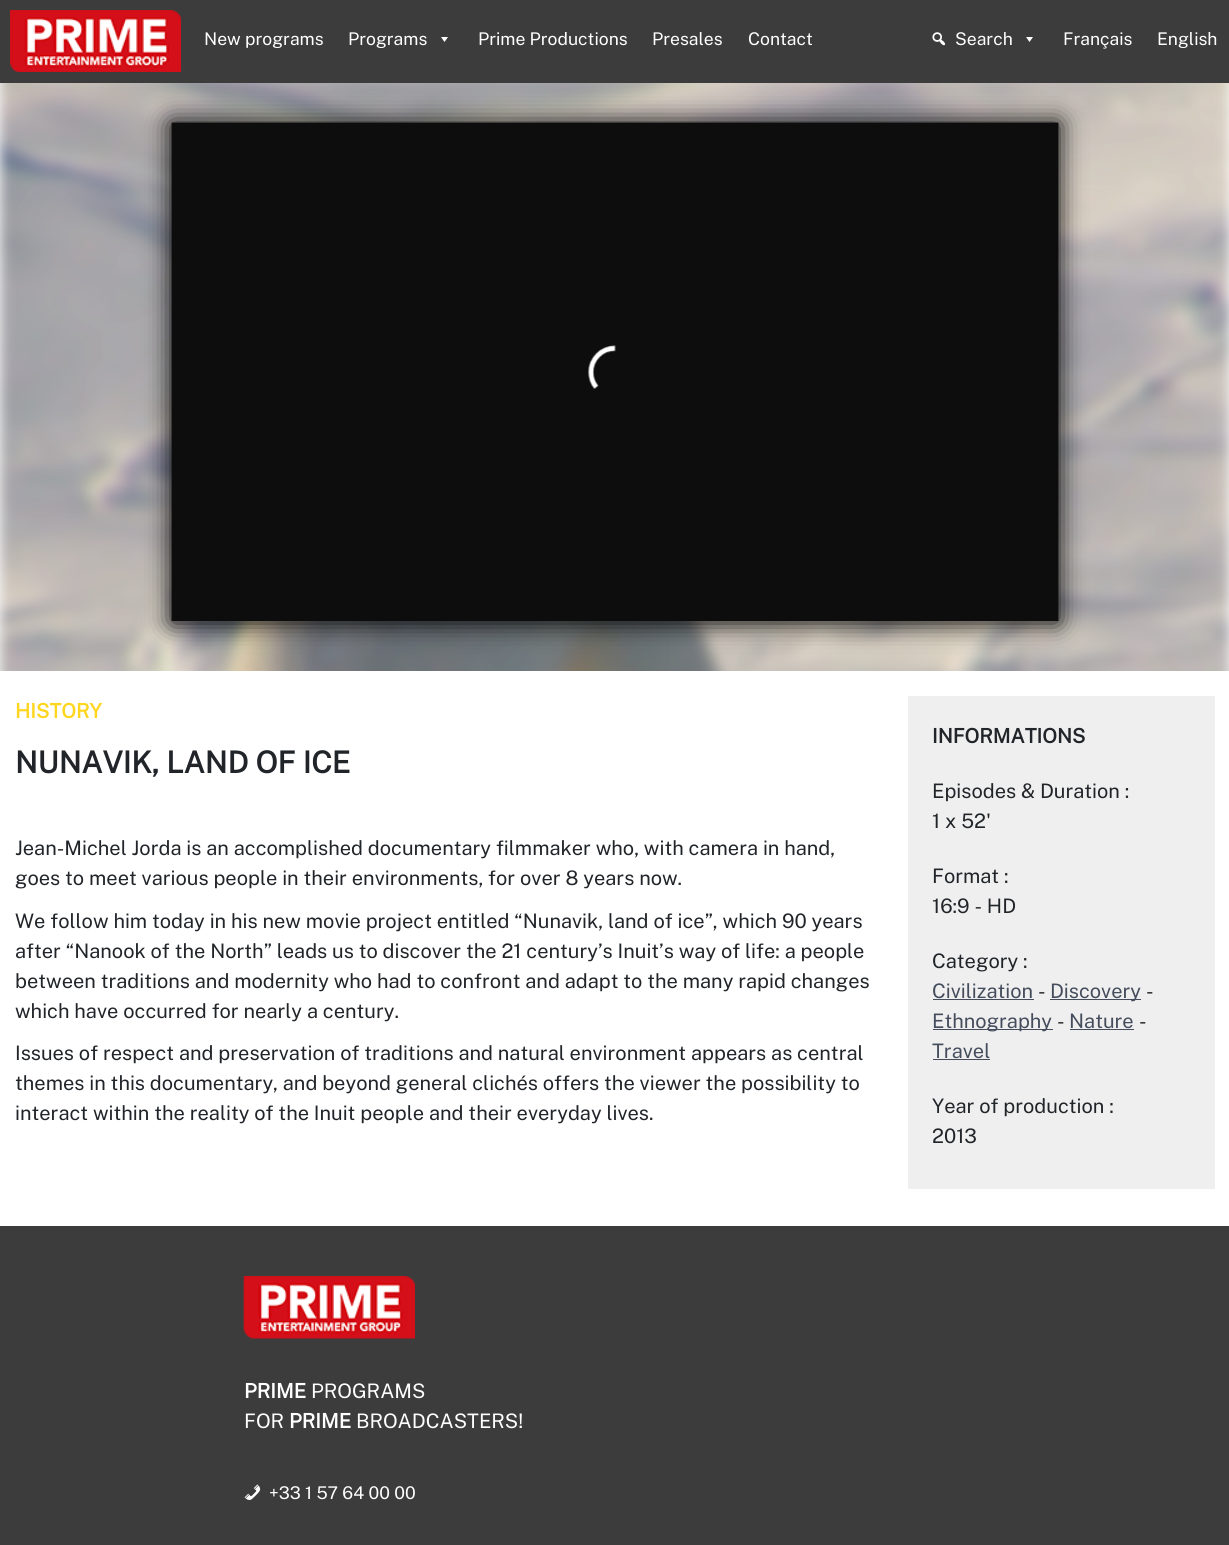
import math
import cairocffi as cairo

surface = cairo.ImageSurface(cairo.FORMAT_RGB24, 1229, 1545)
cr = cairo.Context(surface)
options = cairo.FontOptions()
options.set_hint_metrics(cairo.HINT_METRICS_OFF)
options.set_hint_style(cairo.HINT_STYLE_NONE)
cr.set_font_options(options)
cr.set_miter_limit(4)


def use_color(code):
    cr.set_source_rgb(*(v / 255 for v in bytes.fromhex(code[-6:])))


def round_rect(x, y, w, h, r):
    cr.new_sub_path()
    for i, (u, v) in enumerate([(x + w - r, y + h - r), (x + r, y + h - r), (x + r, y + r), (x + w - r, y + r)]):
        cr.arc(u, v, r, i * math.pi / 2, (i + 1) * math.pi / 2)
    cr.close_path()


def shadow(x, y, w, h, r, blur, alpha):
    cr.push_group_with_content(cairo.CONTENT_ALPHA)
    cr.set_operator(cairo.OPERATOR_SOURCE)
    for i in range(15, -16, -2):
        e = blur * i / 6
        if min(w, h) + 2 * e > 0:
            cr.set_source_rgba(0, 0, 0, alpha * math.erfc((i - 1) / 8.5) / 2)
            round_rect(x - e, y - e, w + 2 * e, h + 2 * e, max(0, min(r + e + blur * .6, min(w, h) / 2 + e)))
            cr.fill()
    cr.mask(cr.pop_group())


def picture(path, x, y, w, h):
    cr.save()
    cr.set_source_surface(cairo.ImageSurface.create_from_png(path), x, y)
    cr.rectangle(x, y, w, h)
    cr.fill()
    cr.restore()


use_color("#ffffff")
cr.paint()
use_color("#3c3c3c")
cr.rectangle(0, 0, 1229, 83)
cr.fill()
picture("img1.png", 10, 10, 171, 62)
cr.select_font_face("Public Sans Thin")
cr.set_font_size(17.5)
use_color("#ffffff")
cr.move_to(204, 45)
cr.show_text("New programs")
cr.move_to(348, 45)
cr.show_text("Programs")
cr.new_path()
cr.move_to(448, 37)
cr.line_to(444.5, 42)
cr.line_to(441, 37)
cr.close_path()
cr.fill()
cr.move_to(478, 45)
cr.show_text("Prime Productions")
cr.move_to(652, 45)
cr.show_text("Presales")
cr.move_to(748, 45)
cr.show_text("Contact")
picture("img2.png", 932, 32, 14, 14)
cr.move_to(955, 45)
cr.show_text("Search")
cr.new_path()
cr.move_to(1033, 37)
cr.line_to(1029.5, 42)
cr.line_to(1026, 37)
cr.close_path()
cr.fill()
cr.move_to(1063, 45)
cr.show_text("Français")
cr.move_to(1157, 45)
cr.show_text("English")
picture("img3.png", 0, 83, 1229, 588)
use_color("#000000")
shadow(171, 123, 888, 500, 0, 12.5, 1)
picture("img4.png", 171, 122, 888, 499)
cr.select_font_face("Public Sans", cairo.FONT_SLANT_NORMAL, cairo.FONT_WEIGHT_BOLD)
cr.set_font_size(20)
use_color("#ffd61f")
cr.move_to(15, 718)
cr.show_text("HISTORY")
cr.set_font_size(30)
use_color("#212529")
cr.move_to(15, 773)
cr.show_text("NUNAVIK, LAND OF ICE")
cr.select_font_face("Public Sans Thin")
cr.set_font_size(20)
cr.move_to(15, 855)
cr.show_text("Jean-Michel Jorda is an accomplished documentary filmmaker who, with camera in hand,")
cr.move_to(15, 885)
cr.show_text("goes to meet various people in their environments, for over 8 years now.")
cr.move_to(15, 928)
cr.show_text("We follow him today in his new movie project entitled “Nunavik, land of ice”, which 90 years")
cr.move_to(15, 958)
cr.show_text("after “Nanook of the North” leads us to discover the 21 century’s Inuit’s way of life: a people")
cr.move_to(15, 988)
cr.show_text("between traditions and modernity who had to confront and adapt to the many rapid changes")
cr.move_to(15, 1018)
cr.show_text("which have occurred for nearly a century.")
cr.move_to(15, 1060)
cr.show_text("Issues of respect and preservation of traditions and natural environment appears as central")
cr.move_to(15, 1090)
cr.show_text("themes in this documentary, and beyond general clichés offers the viewer the possibility to")
cr.move_to(15, 1120)
cr.show_text("interact within the reality of the Inuit people and their everyday lives.")
use_color("#efefef")
cr.rectangle(908, 696, 307, 493)
cr.fill()
cr.select_font_face("Public Sans", cairo.FONT_SLANT_NORMAL, cairo.FONT_WEIGHT_BOLD)
use_color("#212529")
cr.move_to(932, 743)
cr.show_text("INFORMATIONS")
cr.select_font_face("Public Sans Thin")
cr.move_to(932, 798)
cr.show_text("Episodes & Duration :")
cr.move_to(932, 828)
cr.show_text("1 x 52'")
cr.move_to(932, 883)
cr.show_text("Format :")
cr.move_to(932, 913)
cr.show_text("16:9 - HD")
cr.move_to(932, 968)
cr.show_text("Category :")
use_color("#454d5d")
cr.move_to(932, 998)
cr.show_text("Civilization")
cr.rectangle(933, 999, 101, 1)
cr.fill()
use_color("#212529")
cr.move_to(1038, 998)
cr.show_text("-")
use_color("#454d5d")
cr.rectangle(1050, 999, 91, 1)
cr.fill()
cr.move_to(1050, 998)
cr.show_text("Discovery")
use_color("#212529")
cr.move_to(1146, 998)
cr.show_text("-")
use_color("#454d5d")
cr.rectangle(933, 1029, 120, 1)
cr.fill()
cr.move_to(932, 1028)
cr.show_text("Ethnography")
use_color("#212529")
cr.move_to(1057, 1028)
cr.show_text("-")
use_color("#454d5d")
cr.move_to(1069, 1028)
cr.show_text("Nature")
cr.rectangle(1070, 1029, 64, 1)
cr.fill()
use_color("#212529")
cr.move_to(1139, 1028)
cr.show_text("-")
use_color("#454d5d")
cr.move_to(932, 1058)
cr.show_text("Travel")
cr.rectangle(933, 1059, 57, 1)
cr.fill()
use_color("#212529")
cr.move_to(932, 1113)
cr.show_text("Year of production :")
cr.move_to(932, 1143)
cr.show_text("2013")
use_color("#3c3c3c")
cr.rectangle(0, 1226, 1229, 319)
cr.fill()
picture("img5.png", 243, 1276, 172, 63)
cr.select_font_face("Public Sans", cairo.FONT_SLANT_NORMAL, cairo.FONT_WEIGHT_BOLD)
use_color("#ffffff")
cr.move_to(244, 1398)
cr.show_text("PRIME")
cr.select_font_face("Public Sans Thin")
cr.move_to(311, 1398)
cr.show_text("PROGRAMS")
cr.move_to(244, 1428)
cr.show_text("FOR")
cr.select_font_face("Public Sans", cairo.FONT_SLANT_NORMAL, cairo.FONT_WEIGHT_BOLD)
cr.move_to(289, 1428)
cr.show_text("PRIME")
cr.select_font_face("Public Sans Thin")
cr.move_to(356, 1428)
cr.show_text("BROADCASTERS!")
picture("img6.png", 244, 1484, 17, 16)
cr.set_font_size(17.5)
cr.move_to(269, 1499)
cr.show_text("+33 1 57 64 00 00")
surface.write_to_png("result.png")
